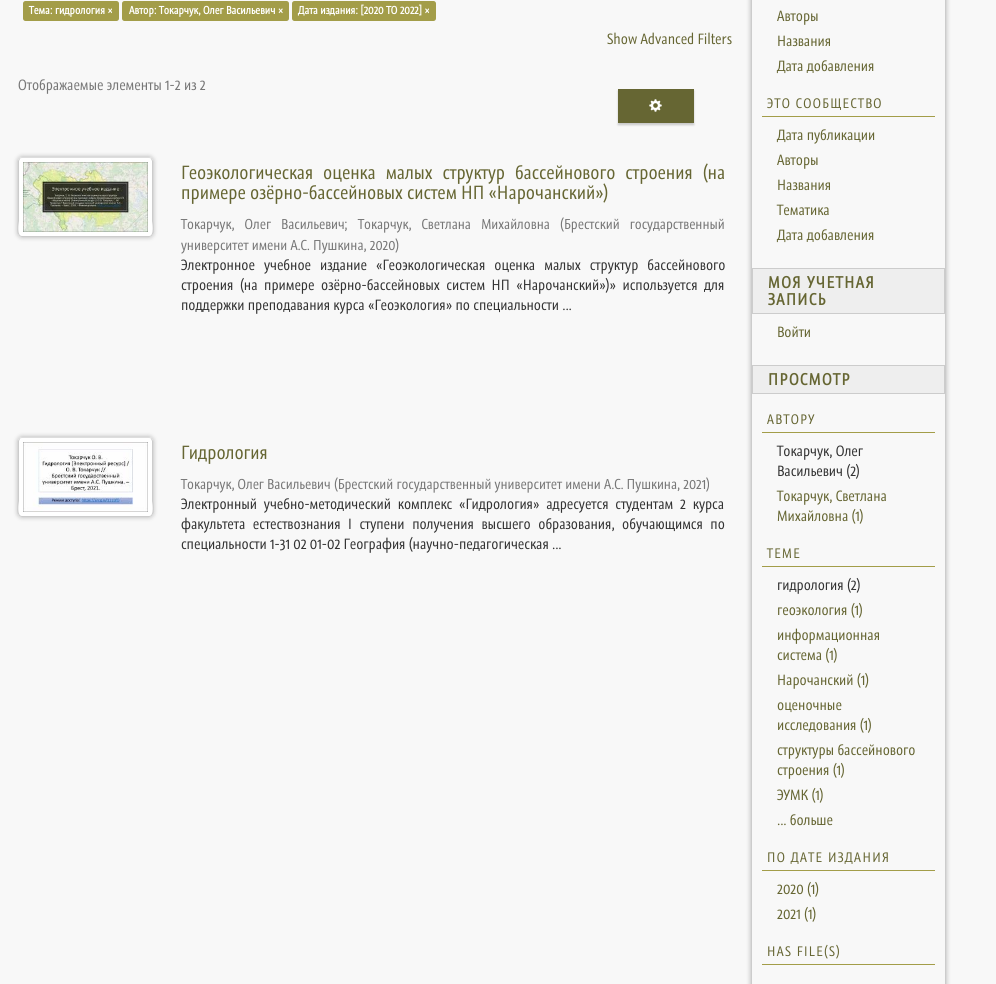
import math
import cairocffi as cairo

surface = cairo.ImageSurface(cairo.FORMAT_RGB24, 996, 984)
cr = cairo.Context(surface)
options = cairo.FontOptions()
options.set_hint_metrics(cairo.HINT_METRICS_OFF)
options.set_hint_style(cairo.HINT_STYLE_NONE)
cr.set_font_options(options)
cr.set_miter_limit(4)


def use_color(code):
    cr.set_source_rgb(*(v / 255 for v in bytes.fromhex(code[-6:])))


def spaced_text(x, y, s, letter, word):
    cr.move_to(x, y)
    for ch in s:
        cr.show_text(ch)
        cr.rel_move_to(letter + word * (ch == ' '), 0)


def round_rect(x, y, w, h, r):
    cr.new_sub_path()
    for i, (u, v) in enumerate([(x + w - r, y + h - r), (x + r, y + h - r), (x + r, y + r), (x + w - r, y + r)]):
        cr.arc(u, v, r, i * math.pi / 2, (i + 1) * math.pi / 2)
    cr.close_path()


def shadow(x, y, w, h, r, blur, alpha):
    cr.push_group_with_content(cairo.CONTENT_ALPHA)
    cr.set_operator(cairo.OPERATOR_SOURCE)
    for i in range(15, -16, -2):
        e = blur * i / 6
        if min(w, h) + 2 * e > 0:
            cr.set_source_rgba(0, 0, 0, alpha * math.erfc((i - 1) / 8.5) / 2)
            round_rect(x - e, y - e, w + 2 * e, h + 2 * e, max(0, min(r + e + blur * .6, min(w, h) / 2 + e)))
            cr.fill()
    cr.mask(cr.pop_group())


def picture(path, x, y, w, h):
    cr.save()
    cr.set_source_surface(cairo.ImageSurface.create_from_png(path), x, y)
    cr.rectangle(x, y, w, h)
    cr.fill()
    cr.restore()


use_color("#f8f8f8")
cr.paint()
use_color("#a39d49")
round_rect(23, 1, 96, 20, 2.5)
cr.fill()
cr.select_font_face("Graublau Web", cairo.FONT_SLANT_NORMAL, cairo.FONT_WEIGHT_BOLD)
cr.set_font_size(10.5)
use_color("#ffffff")
cr.move_to(29, 14)
cr.show_text("Тема: гидрология ×")
use_color("#a39d49")
round_rect(122, 1, 167, 20, 2.5)
cr.fill()
use_color("#ffffff")
cr.move_to(129, 14)
cr.show_text("Автор: Токарчук, Олег Васильевич ×")
use_color("#a39d49")
round_rect(292, 1, 144, 20, 2.5)
cr.fill()
use_color("#ffffff")
cr.move_to(298, 14)
cr.show_text("Дата издания: [2020 TO 2022] ×")
cr.select_font_face("Graublau Web")
cr.set_font_size(14)
use_color("#666633")
cr.move_to(607, 44)
cr.show_text("Show Advanced Filters")
use_color("#777777")
cr.move_to(18, 90)
cr.show_text("Отображаемые элементы 1-2 из 2")
use_color("#000000")
shadow(618, 91, 76, 34, 0, 1, 0.2)
use_color("#666633")
cr.rectangle(618, 89, 76, 34)
cr.fill()
picture("img1.png", 649, 99, 13, 13)
use_color("#000000")
shadow(18, 157, 135, 80, 4, 2.5, 0.3)
use_color("#ffffff")
round_rect(18, 157, 135, 80, 4)
cr.fill()
cr.new_path()
cr.move_to(19.5, 158.5)
cr.curve_to(20, 158, 21, 157.5, 22, 157.5)
cr.line_to(149, 157.5)
cr.curve_to(150, 157.5, 151, 158, 151.5, 158.5)
use_color("#dddddd")
cr.set_line_width(1)
cr.stroke()
cr.new_path()
cr.move_to(151.5, 158.5)
cr.line_to(152.5, 161)
cr.line_to(152.5, 221)
cr.curve_to(152.5, 221.5, 155.5, 236.5, 149, 236.5)
cr.line_to(22, 236.5)
cr.curve_to(15.5, 236.5, 18.5, 221.5, 18.5, 221)
cr.line_to(18.5, 161)
cr.line_to(19.5, 158.5)
use_color("#cccccc")
cr.stroke()
picture("img2.png", 23, 162, 125, 70)
cr.set_font_size(18)
use_color("#666633")
spaced_text(181, 179, "Геоэкологическая оценка малых структур бассейнового строения (на", 0, 5.75)
cr.move_to(181, 199)
cr.show_text("примере озёрно-бассейновых систем НП «Нарочанский»)")
cr.set_font_size(13.5)
use_color("#777777")
spaced_text(181, 229, "Токарчук, Олег Васильевич", 0, 7)
cr.move_to(344, 229)
cr.show_text(";")
spaced_text(358, 229, "Токарчук, Светлана Михайловна", 0, 7)
cr.move_to(560, 229)
cr.show_text("(")
spaced_text(564, 229, "Брестский государственный", 0, 7)
cr.move_to(181, 250)
cr.show_text("университет имени А.С. Пушкина, 2020)")
cr.set_font_size(14)
use_color("#333333")
spaced_text(181, 270, "Электронное учебное издание «Геоэкологическая оценка малых структур бассейнового", 0, 5.75)
spaced_text(181, 290, "строения (на примере озёрно-бассейновых систем НП «Нарочанский»)» используется для", 0, 3.25)
cr.move_to(181, 310)
cr.show_text("поддержки преподавания курса «Геоэкология» по специальности ...")
use_color("#000000")
shadow(18, 437, 135, 80, 4, 2.5, 0.3)
use_color("#ffffff")
round_rect(18, 437, 135, 80, 4)
cr.fill()
cr.new_path()
cr.move_to(19.5, 438.5)
cr.curve_to(20, 438, 21, 437.5, 22, 437.5)
cr.line_to(149, 437.5)
cr.curve_to(150, 437.5, 151, 438, 151.5, 438.5)
use_color("#dddddd")
cr.stroke()
cr.new_path()
cr.move_to(151.5, 438.5)
cr.line_to(152.5, 441)
cr.line_to(152.5, 501)
cr.curve_to(152.5, 501.5, 155.5, 516.5, 149, 516.5)
cr.line_to(22, 516.5)
cr.curve_to(15.5, 516.5, 18.5, 501.5, 18.5, 501)
cr.line_to(18.5, 441)
cr.line_to(19.5, 438.5)
use_color("#cccccc")
cr.stroke()
picture("img3.png", 23, 442, 125, 70)
cr.set_font_size(18)
use_color("#666633")
cr.move_to(181, 459)
cr.show_text("Гидрология")
cr.set_font_size(13.5)
use_color("#777777")
cr.move_to(181, 489)
cr.show_text("Токарчук, Олег Васильевич (Брестский государственный университет имени А.С. Пушкина, 2021)")
cr.set_font_size(14)
use_color("#333333")
spaced_text(181, 509, "Электронный учебно-методический комплекс «Гидрология» адресуется студентам 2 курса", 0, 3.5)
spaced_text(181, 529, "факультета естествознания I ступени получения высшего образования, обучающимся по", 0, 4.25)
cr.move_to(181, 549)
cr.show_text("специальности 1-31 02 01-02 География (научно-педагогическая ...")
cr.save()
cr.set_fill_rule(cairo.FILL_RULE_EVEN_ODD)
cr.new_path()
cr.move_to(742, 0)
cr.line_to(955, 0)
cr.line_to(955, 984)
cr.line_to(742, 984)
cr.close_path()
cr.move_to(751, -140)
cr.line_to(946, -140)
cr.line_to(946, 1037)
cr.line_to(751, 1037)
cr.close_path()
cr.clip()
use_color("#000000")
shadow(751, -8, 195, 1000, 0, 2.5, 0.3)
cr.restore()
use_color("#cccccc")
cr.rectangle(945, 0, 1, 984)
cr.fill()
cr.rectangle(751, 0, 1, 984)
cr.fill()
use_color("#666633")
cr.move_to(777, 21)
cr.show_text("Авторы")
cr.move_to(777, 46)
cr.show_text("Названия")
cr.move_to(777, 71)
cr.show_text("Дата добавления")
use_color("#a39d49")
cr.rectangle(762, 116, 173, 1)
cr.fill()
cr.set_font_size(13)
use_color("#666633")
spaced_text(767, 108, "ЭТО СООБЩЕСТВО", 1.4, 0)
cr.set_font_size(14)
cr.move_to(777, 140)
cr.show_text("Дата публикации")
cr.move_to(777, 165)
cr.show_text("Авторы")
cr.move_to(777, 190)
cr.show_text("Названия")
cr.move_to(777, 215)
cr.show_text("Тематика")
cr.move_to(777, 240)
cr.show_text("Дата добавления")
use_color("#eeeeee")
cr.rectangle(752.5, 268.5, 192, 45)
cr.fill_preserve()
use_color("#cccccc")
cr.stroke()
cr.select_font_face("Graublau Web", cairo.FONT_SLANT_NORMAL, cairo.FONT_WEIGHT_BOLD)
cr.set_font_size(15.5)
use_color("#666633")
spaced_text(768, 288, "МОЯ УЧЕТНАЯ", 1.5, 0)
spaced_text(768, 305, "ЗАПИСЬ", 1.5, 0)
cr.select_font_face("Graublau Web")
cr.set_font_size(14)
cr.move_to(777, 337)
cr.show_text("Войти")
use_color("#eeeeee")
cr.rectangle(752.5, 365.5, 192, 28)
cr.fill_preserve()
use_color("#cccccc")
cr.stroke()
cr.select_font_face("Graublau Web", cairo.FONT_SLANT_NORMAL, cairo.FONT_WEIGHT_BOLD)
cr.set_font_size(15.5)
use_color("#666633")
spaced_text(768, 385, "ПРОСМОТР", 1.5, 0)
use_color("#a39d49")
cr.rectangle(762, 432, 173, 1)
cr.fill()
cr.select_font_face("Graublau Web")
cr.set_font_size(13)
use_color("#666633")
spaced_text(767, 424, "АВТОРУ", 1.4, 0)
cr.set_font_size(14)
use_color("#333333")
cr.move_to(777, 456)
cr.show_text("Токарчук, Олег")
cr.move_to(777, 476)
cr.show_text("Васильевич (2)")
use_color("#666633")
cr.move_to(777, 501)
cr.show_text("Токарчук, Светлана")
cr.move_to(777, 521)
cr.show_text("Михайловна (1)")
use_color("#a39d49")
cr.rectangle(762, 566, 173, 1)
cr.fill()
cr.set_font_size(13)
use_color("#666633")
spaced_text(767, 558, "ТЕМЕ", 1.4, 0)
cr.set_font_size(14)
use_color("#333333")
cr.move_to(777, 590)
cr.show_text("гидрология (2)")
use_color("#666633")
cr.move_to(777, 615)
cr.show_text("геоэкология (1)")
cr.move_to(777, 640)
cr.show_text("информационная")
cr.move_to(777, 660)
cr.show_text("система (1)")
cr.move_to(777, 685)
cr.show_text("Нарочанский (1)")
cr.move_to(777, 710)
cr.show_text("оценочные")
cr.move_to(777, 730)
cr.show_text("исследования (1)")
cr.move_to(777, 755)
cr.show_text("структуры бассейнового")
cr.move_to(777, 775)
cr.show_text("строения (1)")
cr.move_to(777, 800)
cr.show_text("ЭУМК (1)")
cr.move_to(777, 825)
cr.show_text("... больше")
use_color("#a39d49")
cr.rectangle(762, 870, 173, 1)
cr.fill()
cr.set_font_size(13)
use_color("#666633")
spaced_text(767, 862, "ПО ДАТЕ ИЗДАНИЯ", 1.4, 0)
cr.set_font_size(14)
cr.move_to(777, 894)
cr.show_text("2020 (1)")
cr.move_to(777, 919)
cr.show_text("2021 (1)")
use_color("#a39d49")
cr.rectangle(762, 964, 173, 1)
cr.fill()
cr.set_font_size(13)
use_color("#666633")
spaced_text(767, 956, "HAS FILE(S)", 1.4, 0)
surface.write_to_png("result.png")
